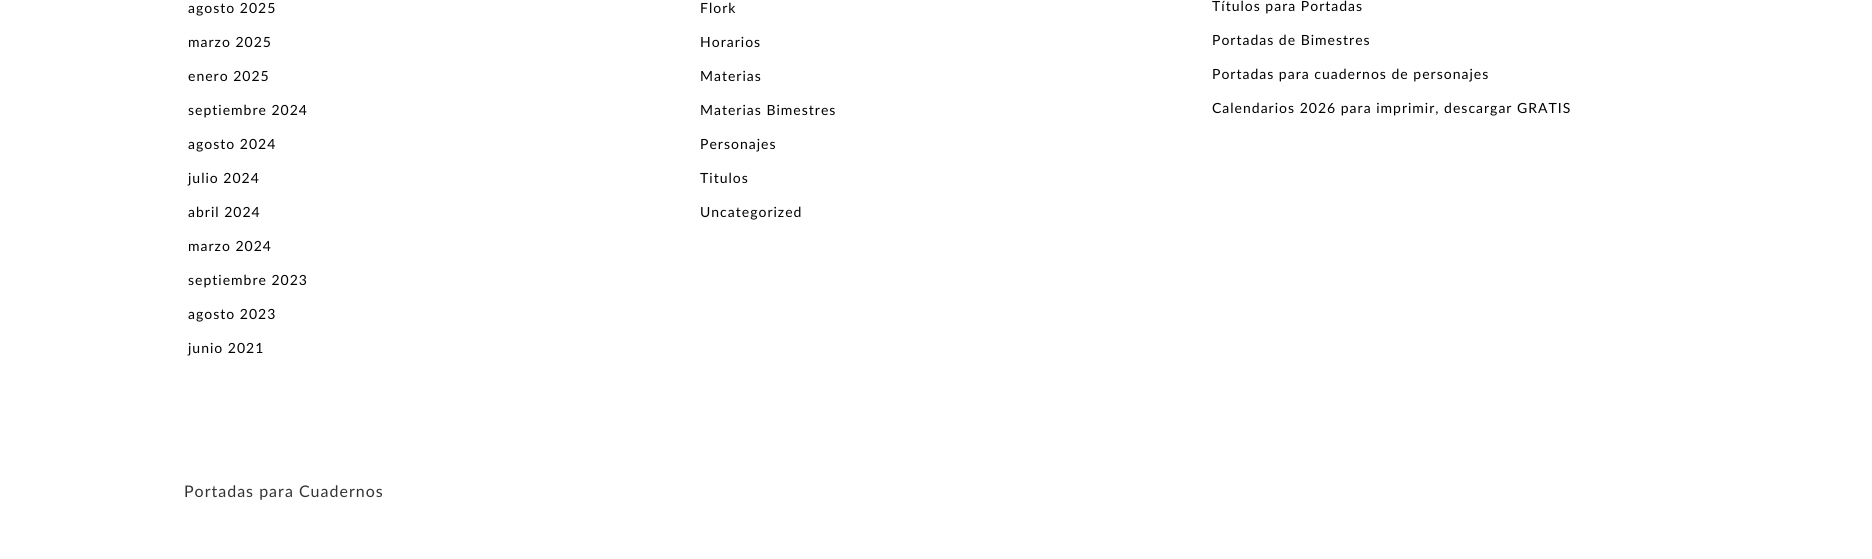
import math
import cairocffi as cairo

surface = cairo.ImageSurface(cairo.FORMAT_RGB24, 1872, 559)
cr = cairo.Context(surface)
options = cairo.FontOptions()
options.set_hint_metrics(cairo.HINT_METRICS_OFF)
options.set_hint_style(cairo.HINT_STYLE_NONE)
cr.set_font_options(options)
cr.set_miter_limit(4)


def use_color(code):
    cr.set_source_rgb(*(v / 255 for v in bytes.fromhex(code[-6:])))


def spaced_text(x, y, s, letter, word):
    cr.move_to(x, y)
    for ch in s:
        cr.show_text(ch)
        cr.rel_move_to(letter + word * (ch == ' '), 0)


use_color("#ffffff")
cr.paint()
cr.select_font_face("Lato")
cr.set_font_size(14)
use_color("#000000")
spaced_text(188, 13, "agosto 2025", 1, 0)
spaced_text(188, 47, "marzo 2025", 1, 0)
spaced_text(188, 81, "enero 2025", 1, 0)
spaced_text(188, 115, "septiembre 2024", 1, 0)
spaced_text(188, 149, "agosto 2024", 1, 0)
spaced_text(188, 183, "julio 2024", 1, 0)
spaced_text(188, 217, "abril 2024", 1, 0)
spaced_text(188, 251, "marzo 2024", 1, 0)
spaced_text(188, 285, "septiembre 2023", 1, 0)
spaced_text(188, 319, "agosto 2023", 1, 0)
spaced_text(188, 353, "junio 2021", 1, 0)
spaced_text(700, 13, "Flork", 1, 0)
spaced_text(700, 47, "Horarios", 1, 0)
spaced_text(700, 81, "Materias", 1, 0)
spaced_text(700, 115, "Materias Bimestres", 1, 0)
spaced_text(700, 149, "Personajes", 1, 0)
spaced_text(700, 183, "Titulos", 1, 0)
spaced_text(700, 217, "Uncategorized", 1, 0)
spaced_text(1212, 11, "Títulos para Portadas", 1, 0)
spaced_text(1212, 45, "Portadas de Bimestres", 1, 0)
spaced_text(1212, 79, "Portadas para cuadernos de personajes", 1, 0)
spaced_text(1212, 113, "Calendarios 2026 para imprimir, descargar GRATIS", 1, 0)
cr.set_font_size(16)
use_color("#333333")
spaced_text(184, 497, "Portadas para Cuadernos", 1, 0)
surface.write_to_png("result.png")
